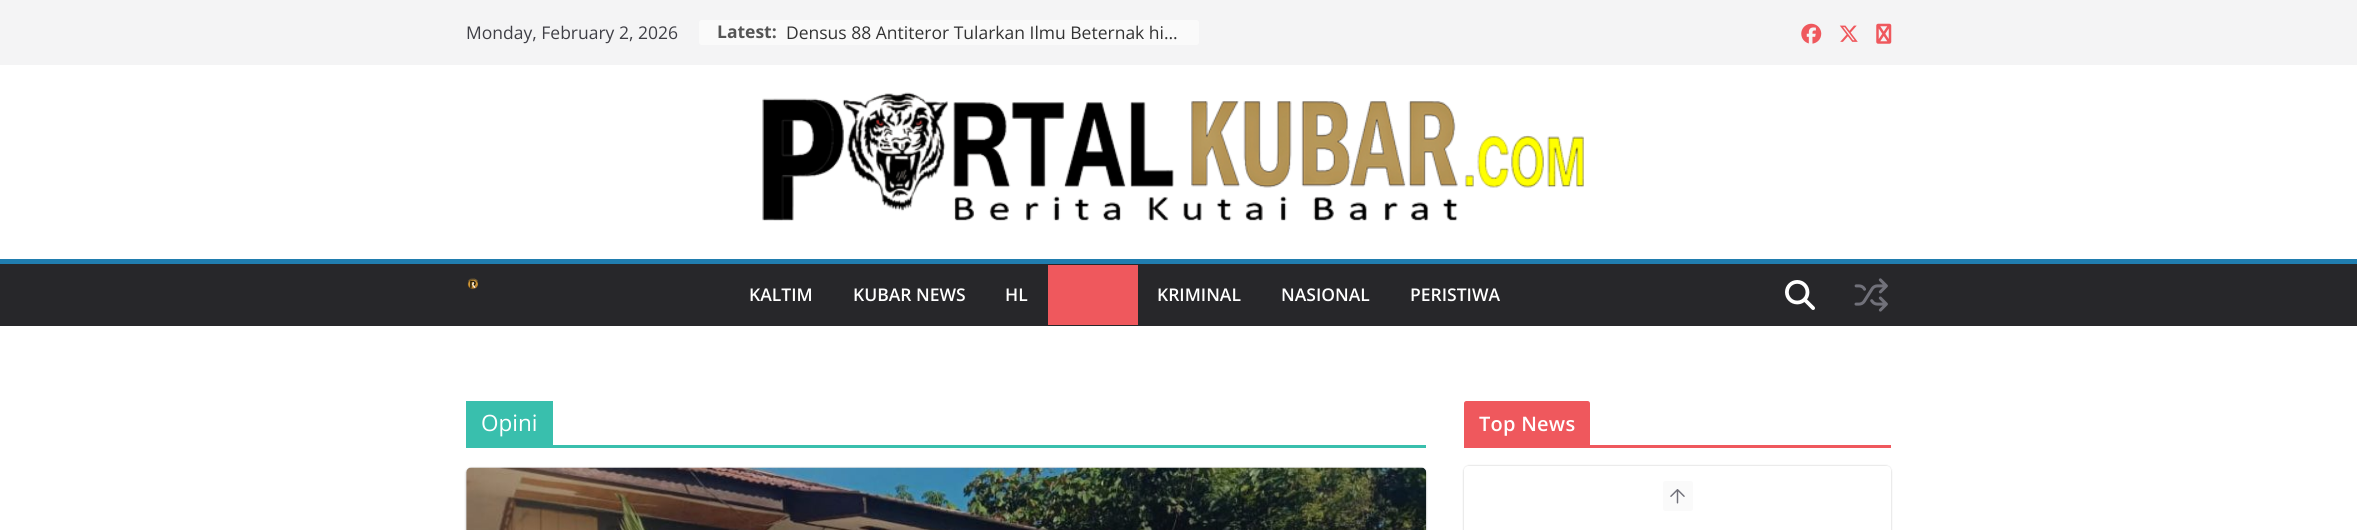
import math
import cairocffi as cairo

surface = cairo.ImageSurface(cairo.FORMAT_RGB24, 2357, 530)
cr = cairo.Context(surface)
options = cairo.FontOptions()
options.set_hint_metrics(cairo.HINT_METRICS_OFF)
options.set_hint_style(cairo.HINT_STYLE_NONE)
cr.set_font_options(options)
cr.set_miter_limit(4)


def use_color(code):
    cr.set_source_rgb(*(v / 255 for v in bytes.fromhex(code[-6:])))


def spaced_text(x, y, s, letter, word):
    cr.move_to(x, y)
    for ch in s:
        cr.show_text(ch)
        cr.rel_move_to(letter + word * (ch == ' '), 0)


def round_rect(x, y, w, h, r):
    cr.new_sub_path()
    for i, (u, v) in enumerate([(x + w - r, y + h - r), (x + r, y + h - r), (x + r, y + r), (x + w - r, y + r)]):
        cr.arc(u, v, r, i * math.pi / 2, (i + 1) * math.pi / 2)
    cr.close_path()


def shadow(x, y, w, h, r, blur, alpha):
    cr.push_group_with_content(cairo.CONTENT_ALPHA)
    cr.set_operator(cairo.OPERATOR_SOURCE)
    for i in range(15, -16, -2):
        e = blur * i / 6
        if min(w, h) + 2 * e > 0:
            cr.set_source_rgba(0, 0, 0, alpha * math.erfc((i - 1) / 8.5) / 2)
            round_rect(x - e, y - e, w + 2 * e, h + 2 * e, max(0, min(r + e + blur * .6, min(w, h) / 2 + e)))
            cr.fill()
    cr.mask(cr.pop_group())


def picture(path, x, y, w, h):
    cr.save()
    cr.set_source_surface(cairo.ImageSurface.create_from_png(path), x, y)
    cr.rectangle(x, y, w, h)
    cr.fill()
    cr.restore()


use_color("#ffffff")
cr.paint()
use_color("#f4f4f5")
cr.rectangle(0, 0, 2357, 65)
cr.fill()
cr.select_font_face("Open Sans")
cr.set_font_size(17.5)
use_color("#3f3f46")
cr.move_to(466, 39)
cr.show_text("Monday, February 2, 2026")
use_color("#fafafa")
round_rect(699, 20, 500, 25, 2.5)
cr.fill()
cr.select_font_face("Open Sans", cairo.FONT_SLANT_NORMAL, cairo.FONT_WEIGHT_BOLD)
use_color("#555555")
cr.move_to(717, 38)
cr.show_text("Latest:")
cr.select_font_face("Open Sans")
use_color("#333333")
cr.move_to(786, 39)
cr.show_text("Densus 88 Antiteror Tularkan Ilmu Beternak hi…")
picture("img1.png", 1801, 23, 21, 21)
picture("img2.png", 1839, 25, 19, 17)
picture("img3.png", 1876, 23, 16, 21)
picture("img4.png", 762, 92, 822, 129)
use_color("#27272a")
cr.rectangle(0, 264, 2357, 62)
cr.fill()
use_color("#207daf")
cr.rectangle(0, 259, 2357, 5)
cr.fill()
picture("img5.png", 467, 278, 11, 12)
cr.select_font_face("Open Sans SemiBold")
use_color("#ffffff")
cr.move_to(749, 301)
cr.show_text("KALTIM")
cr.move_to(853, 301)
cr.show_text("KUBAR NEWS")
cr.move_to(1005, 301)
cr.show_text("HL")
use_color("#ef585d")
cr.rectangle(1048, 265, 90, 60)
cr.fill()
use_color("#ffffff")
cr.move_to(1157, 301)
cr.show_text("KRIMINAL")
cr.move_to(1281, 301)
cr.show_text("NASIONAL")
cr.move_to(1410, 301)
cr.show_text("PERISTIWA")
picture("img6.png", 1785, 280, 30, 30)
picture("img7.png", 1854, 278, 34, 34)
use_color("#39bfad")
cr.rectangle(466, 445, 960, 3)
cr.fill()
cr.rectangle(466, 401, 87, 44)
cr.fill()
cr.select_font_face("Open Sans")
cr.set_font_size(22.5)
use_color("#ffffff")
cr.move_to(481, 431)
cr.show_text("Opini")
use_color("#000000")
shadow(466, 468, 960, 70, 5, 1, 0.24)
picture("img8.png", 466, 467, 961, 63)
use_color("#ef585d")
cr.rectangle(1464, 445, 427, 3)
cr.fill()
cr.new_path()
cr.move_to(1466.5, 401)
cr.line_to(1587.5, 401)
cr.curve_to(1589, 401, 1590, 402, 1590, 403.5)
cr.line_to(1590, 445)
cr.line_to(1464, 445)
cr.line_to(1464, 403.5)
cr.curve_to(1464, 402, 1465, 401, 1466.5, 401)
cr.close_path()
cr.fill()
cr.select_font_face("Open Sans SemiBold")
cr.set_font_size(20)
use_color("#ffffff")
spaced_text(1479, 431, "Top News", 0.25, 0)
cr.save()
cr.set_fill_rule(cairo.FILL_RULE_EVEN_ODD)
cr.new_path()
cr.move_to(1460, 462)
cr.line_to(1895, 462)
cr.line_to(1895, 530)
cr.line_to(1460, 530)
cr.close_path()
cr.move_to(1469, 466)
cr.line_to(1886, 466)
cr.curve_to(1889, 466, 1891, 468, 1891, 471)
cr.line_to(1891, 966)
cr.curve_to(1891, 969, 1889, 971, 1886, 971)
cr.line_to(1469, 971)
cr.curve_to(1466, 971, 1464, 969, 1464, 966)
cr.line_to(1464, 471)
cr.curve_to(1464, 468, 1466, 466, 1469, 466)
cr.close_path()
cr.clip()
use_color("#000000")
shadow(1464, 466, 427, 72, 5, 1, 0.24)
cr.restore()
use_color("#fafafa")
round_rect(1663, 481, 30, 30, 2.5)
cr.fill()
picture("img9.png", 1670, 489, 15, 15)
surface.write_to_png("result.png")
